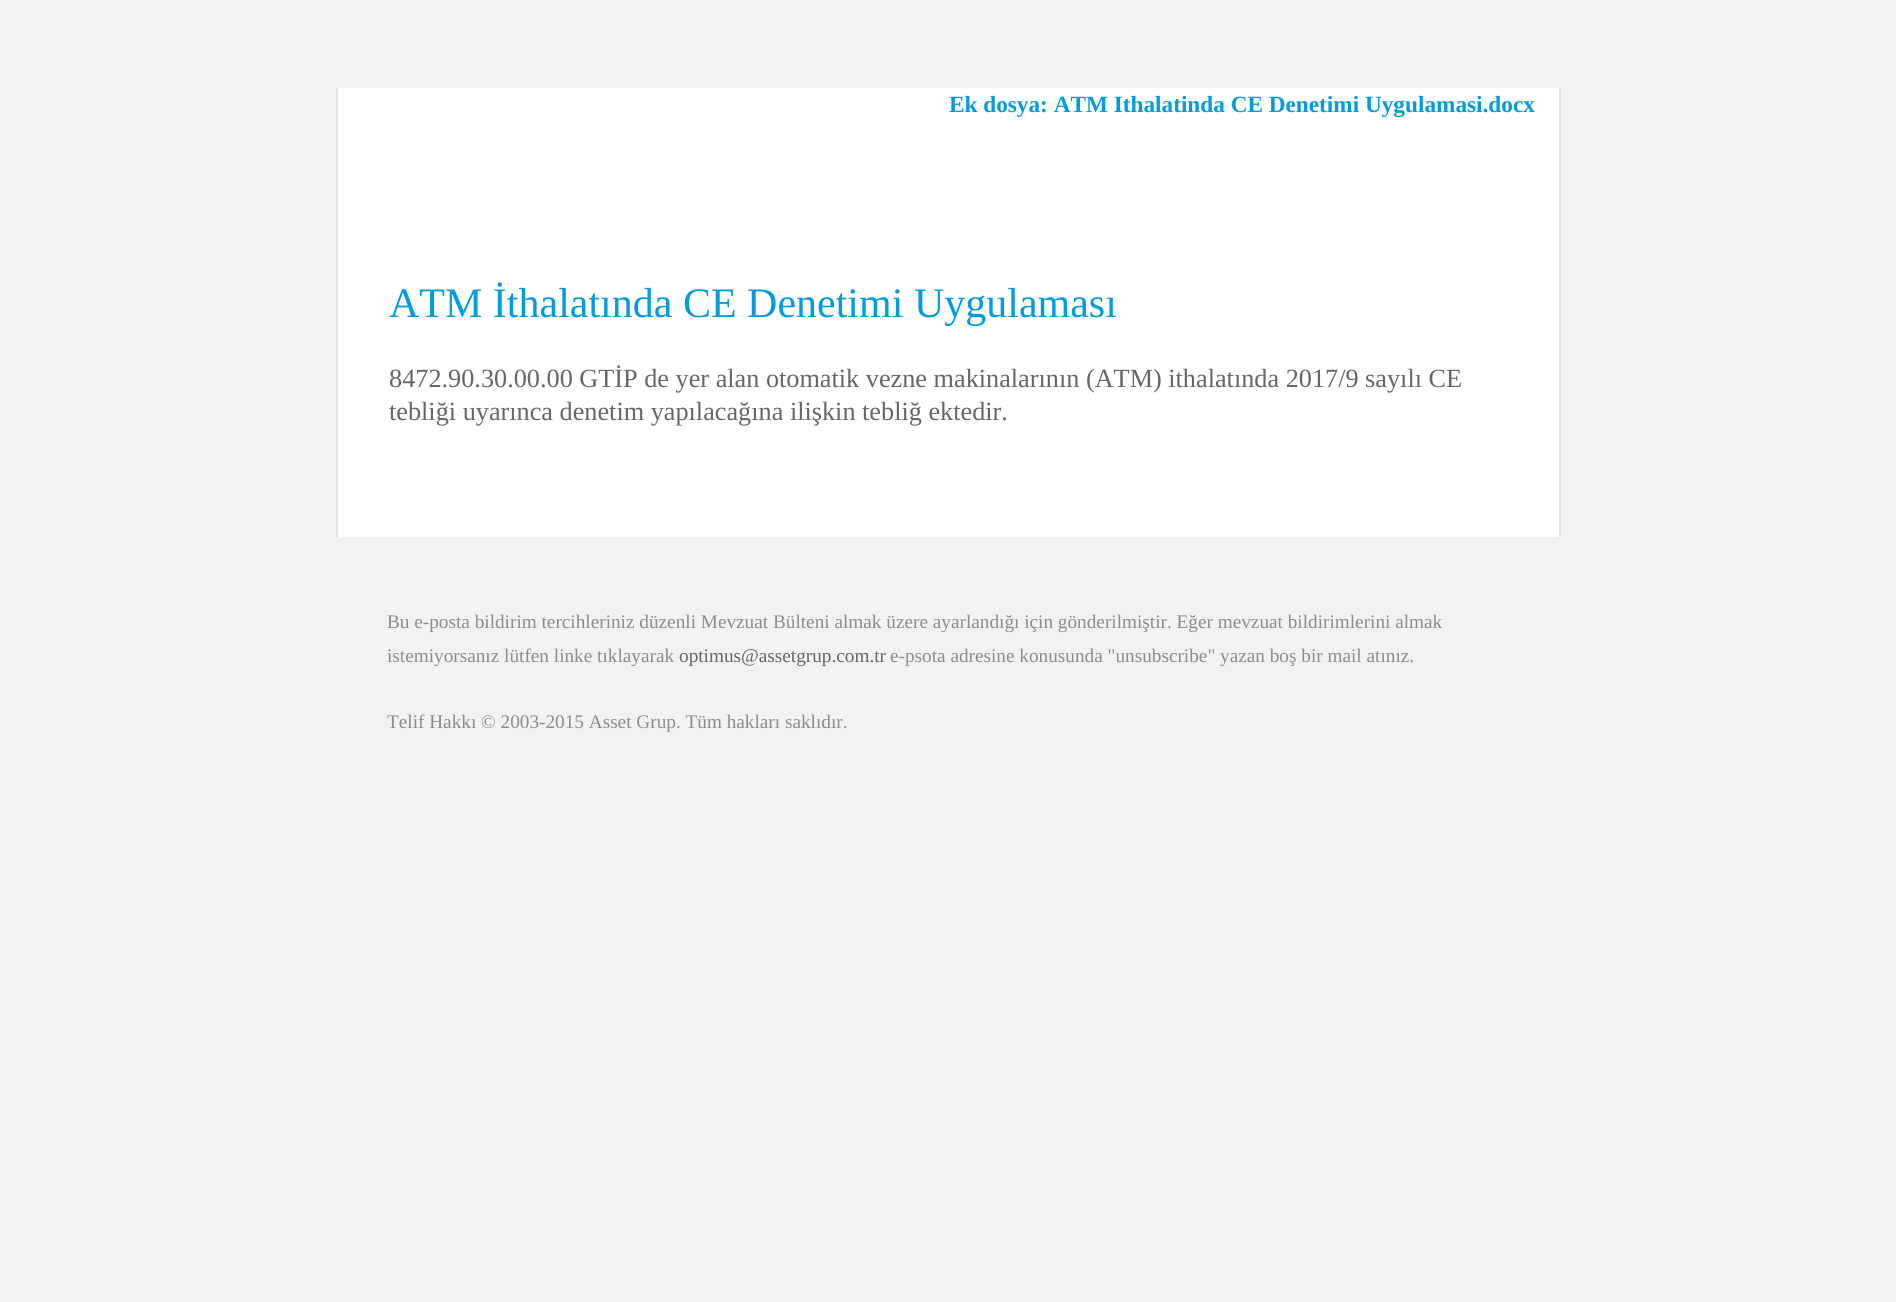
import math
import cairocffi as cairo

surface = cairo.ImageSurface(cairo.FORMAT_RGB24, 1896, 1302)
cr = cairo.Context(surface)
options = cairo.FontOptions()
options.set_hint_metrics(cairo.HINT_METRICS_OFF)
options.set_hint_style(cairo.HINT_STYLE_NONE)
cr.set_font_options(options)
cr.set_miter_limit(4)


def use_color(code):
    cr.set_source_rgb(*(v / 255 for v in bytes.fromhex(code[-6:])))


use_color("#f2f2f2")
cr.paint()
use_color("#ffffff")
cr.rectangle(338, 88, 1221, 449)
cr.fill()
cr.select_font_face("Liberation Serif", cairo.FONT_SLANT_NORMAL, cairo.FONT_WEIGHT_BOLD)
cr.set_font_size(23.25)
use_color("#009cde")
cr.move_to(949, 112)
cr.show_text("Ek dosya: ATM Ithalatinda CE Denetimi Uygulamasi.docx")
use_color("#e3e3e3")
cr.rectangle(336, 88, 2, 449)
cr.fill()
cr.rectangle(1559, 88, 2, 449)
cr.fill()
cr.select_font_face("Liberation Serif")
cr.set_font_size(42)
use_color("#009cde")
cr.move_to(389, 317)
cr.show_text("ATM İthalatında CE Denetimi Uygulaması")
cr.set_font_size(26.25)
use_color("#666666")
cr.move_to(389, 387)
cr.show_text("8472.90.30.00.00 GTİP de yer alan otomatik vezne makinalarının (ATM) ithalatında 2017/9 sayılı CE")
cr.move_to(389, 420)
cr.show_text("tebliği uyarınca denetim yapılacağına ilişkin tebliğ ektedir.")
cr.set_font_size(19.25)
use_color("#8c8c8c")
cr.move_to(387, 628)
cr.show_text("Bu e-posta bildirim tercihleriniz düzenli Mevzuat Bülteni almak üzere ayarlandığı için gönderilmiştir. Eğer mevzuat bildirimlerini almak")
cr.move_to(387, 662)
cr.show_text("istemiyorsanız lütfen linke tıklayarak")
use_color("#666666")
cr.move_to(679, 662)
cr.show_text("optimus@assetgrup.com.tr")
use_color("#8c8c8c")
cr.move_to(890, 662)
cr.show_text("e-psota adresine konusunda \"unsubscribe\" yazan boş bir mail atınız.")
cr.move_to(387, 728)
cr.show_text("Telif Hakkı © 2003-2015 Asset Grup. Tüm hakları saklıdır.")
surface.write_to_png("result.png")
